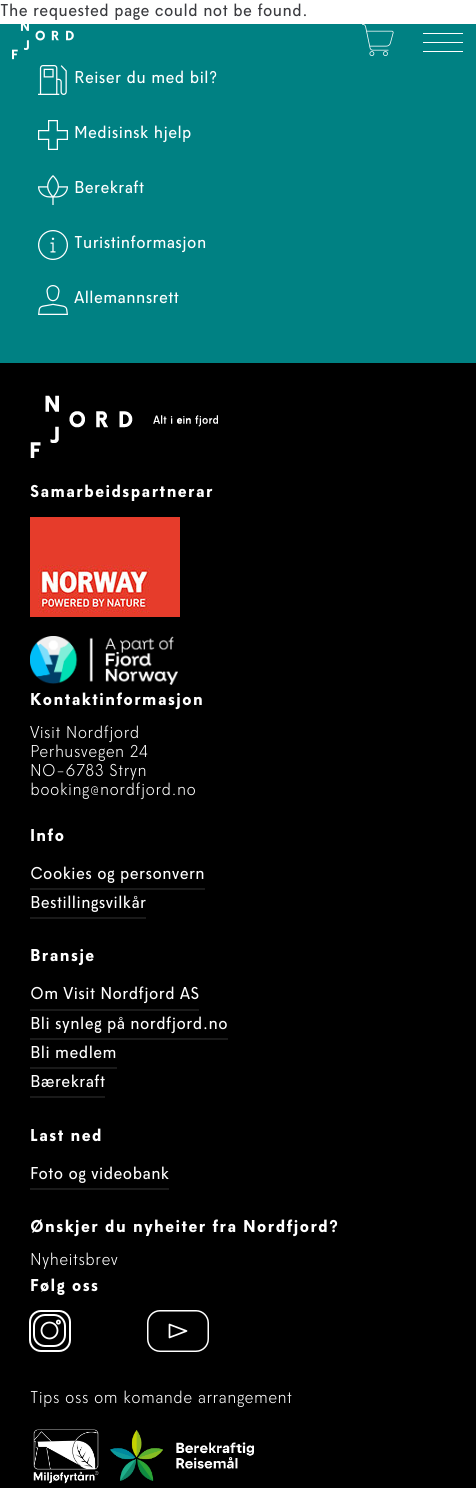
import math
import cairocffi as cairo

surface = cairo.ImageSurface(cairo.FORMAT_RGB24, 476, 1488)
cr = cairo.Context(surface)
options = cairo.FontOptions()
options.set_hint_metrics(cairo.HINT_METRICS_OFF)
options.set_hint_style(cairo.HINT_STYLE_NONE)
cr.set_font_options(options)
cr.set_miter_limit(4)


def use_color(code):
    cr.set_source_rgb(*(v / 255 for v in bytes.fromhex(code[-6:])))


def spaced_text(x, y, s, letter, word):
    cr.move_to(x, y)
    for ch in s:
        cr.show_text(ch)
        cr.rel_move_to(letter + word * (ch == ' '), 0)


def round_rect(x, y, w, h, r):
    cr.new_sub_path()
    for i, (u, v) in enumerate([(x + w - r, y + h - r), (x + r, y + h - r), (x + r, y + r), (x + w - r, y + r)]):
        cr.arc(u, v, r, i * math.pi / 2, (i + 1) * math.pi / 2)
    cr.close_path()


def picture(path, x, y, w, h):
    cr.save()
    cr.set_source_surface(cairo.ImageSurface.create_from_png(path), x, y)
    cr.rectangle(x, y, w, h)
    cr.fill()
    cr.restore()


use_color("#ffffff")
cr.paint()
cr.select_font_face("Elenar")
cr.set_font_size(16)
use_color("#3a3b3f")
cr.move_to(0, 16)
cr.show_text("The requested page could not be found.")
use_color("#008183")
cr.rectangle(0, 24, 476, 339)
cr.fill()
picture("img1.png", 12, 24, 62, 36)
picture("img2.png", 362, 24, 32, 32)
use_color("#ffffff")
cr.rectangle(423, 33, 40, 1)
cr.fill()
cr.rectangle(423, 42, 40, 1)
cr.fill()
cr.rectangle(423, 51, 40, 1)
cr.fill()
picture("img3.png", 38, 65, 29, 30)
cr.move_to(74, 83)
cr.show_text("Reiser du med bil?")
picture("img4.png", 38, 120, 30, 30)
cr.move_to(74, 138)
cr.show_text("Medisinsk hjelp")
picture("img5.png", 38, 175, 30, 30)
cr.move_to(74, 193)
cr.show_text("Berekraft")
picture("img6.png", 38, 230, 30, 30)
cr.move_to(74, 248)
cr.show_text("Turistinformasjon")
picture("img7.png", 38, 285, 30, 30)
cr.move_to(74, 303)
cr.show_text("Allemannsrett")
use_color("#000000")
cr.rectangle(0, 363, 476, 1125)
cr.fill()
picture("img8.png", 30, 395, 188, 63)
cr.select_font_face("Elenar", cairo.FONT_SLANT_NORMAL, cairo.FONT_WEIGHT_BOLD)
use_color("#ffffff")
spaced_text(30, 497, "Samarbeidspartnerar", 1, 0)
picture("img9.png", 30, 517, 150, 100)
picture("img10.png", 30, 636, 148, 49)
spaced_text(30, 705, "Kontaktinformasjon", 1, 0)
cr.select_font_face("Elenar Light")
cr.move_to(30, 738)
cr.show_text("Visit Nordfjord")
cr.move_to(30, 757)
cr.show_text("Perhusvegen 24")
cr.move_to(30, 776)
cr.show_text("NO-6783 Stryn")
cr.move_to(30, 795)
cr.show_text("booking@nordfjord.no")
cr.select_font_face("Elenar", cairo.FONT_SLANT_NORMAL, cairo.FONT_WEIGHT_BOLD)
spaced_text(30, 841, "Info", 1, 0)
cr.select_font_face("Elenar")
cr.move_to(30, 879)
cr.show_text("Cookies og personvern")
use_color("#1a1a1a")
cr.rectangle(30, 888, 175, 2)
cr.fill()
use_color("#ffffff")
cr.move_to(30, 908)
cr.show_text("Bestillingsvilkår")
use_color("#1a1a1a")
cr.rectangle(30, 917, 116, 2)
cr.fill()
cr.select_font_face("Elenar", cairo.FONT_SLANT_NORMAL, cairo.FONT_WEIGHT_BOLD)
use_color("#ffffff")
spaced_text(30, 961, "Bransje", 1, 0)
cr.select_font_face("Elenar")
cr.move_to(30, 999)
cr.show_text("Om Visit Nordfjord AS")
use_color("#1a1a1a")
cr.rectangle(30, 1009, 169, 2)
cr.fill()
use_color("#ffffff")
cr.move_to(30, 1029)
cr.show_text("Bli synleg på nordfjord.no")
use_color("#1a1a1a")
cr.rectangle(30, 1038, 198, 2)
cr.fill()
use_color("#ffffff")
cr.move_to(30, 1058)
cr.show_text("Bli medlem")
use_color("#1a1a1a")
cr.rectangle(30, 1067, 87, 2)
cr.fill()
use_color("#ffffff")
cr.move_to(30, 1087)
cr.show_text("Bærekraft")
use_color("#1a1a1a")
cr.rectangle(30, 1096, 75, 2)
cr.fill()
cr.select_font_face("Elenar", cairo.FONT_SLANT_NORMAL, cairo.FONT_WEIGHT_BOLD)
use_color("#ffffff")
spaced_text(30, 1141, "Last ned", 1, 0)
cr.select_font_face("Elenar")
cr.move_to(30, 1179)
cr.show_text("Foto og videobank")
use_color("#1a1a1a")
cr.rectangle(30, 1188, 139, 2)
cr.fill()
cr.select_font_face("Elenar", cairo.FONT_SLANT_NORMAL, cairo.FONT_WEIGHT_BOLD)
use_color("#ffffff")
spaced_text(30, 1232, "Ønskjer du nyheiter fra Nordfjord?", 1, 0)
cr.select_font_face("Elenar Light")
cr.move_to(30, 1265)
cr.show_text("Nyheitsbrev")
cr.select_font_face("Elenar", cairo.FONT_SLANT_NORMAL, cairo.FONT_WEIGHT_BOLD)
spaced_text(30, 1291, "Følg oss", 1, 0)
round_rect(30, 1311, 40, 40, 11)
cr.stroke()
round_rect(34, 1315, 31, 31, 11)
cr.stroke()
cr.arc(49.5, 1330.5, 8, 0, 2 * math.pi)
cr.set_line_width(1.8)
cr.stroke()
cr.arc(58.4, 1322.1, 1.6, 0, 2 * math.pi)
cr.stroke()
round_rect(147.75, 1310.75, 60.5, 40.5, 12.25)
cr.set_line_width(1.5)
cr.stroke()
cr.new_path()
cr.move_to(169.5, 1337.5)
cr.line_to(169.5, 1324.5)
cr.line_to(186.5, 1331)
cr.close_path()
cr.set_line_width(1.7)
cr.set_line_cap(cairo.LINE_CAP_ROUND)
cr.set_line_join(cairo.LINE_JOIN_ROUND)
cr.stroke()
cr.select_font_face("Elenar Light")
cr.move_to(30, 1403)
cr.show_text("Tips oss om komande arrangement")
picture("img11.png", 33, 1429, 66, 55)
picture("img12.png", 110, 1430, 144, 51)
surface.write_to_png("result.png")
